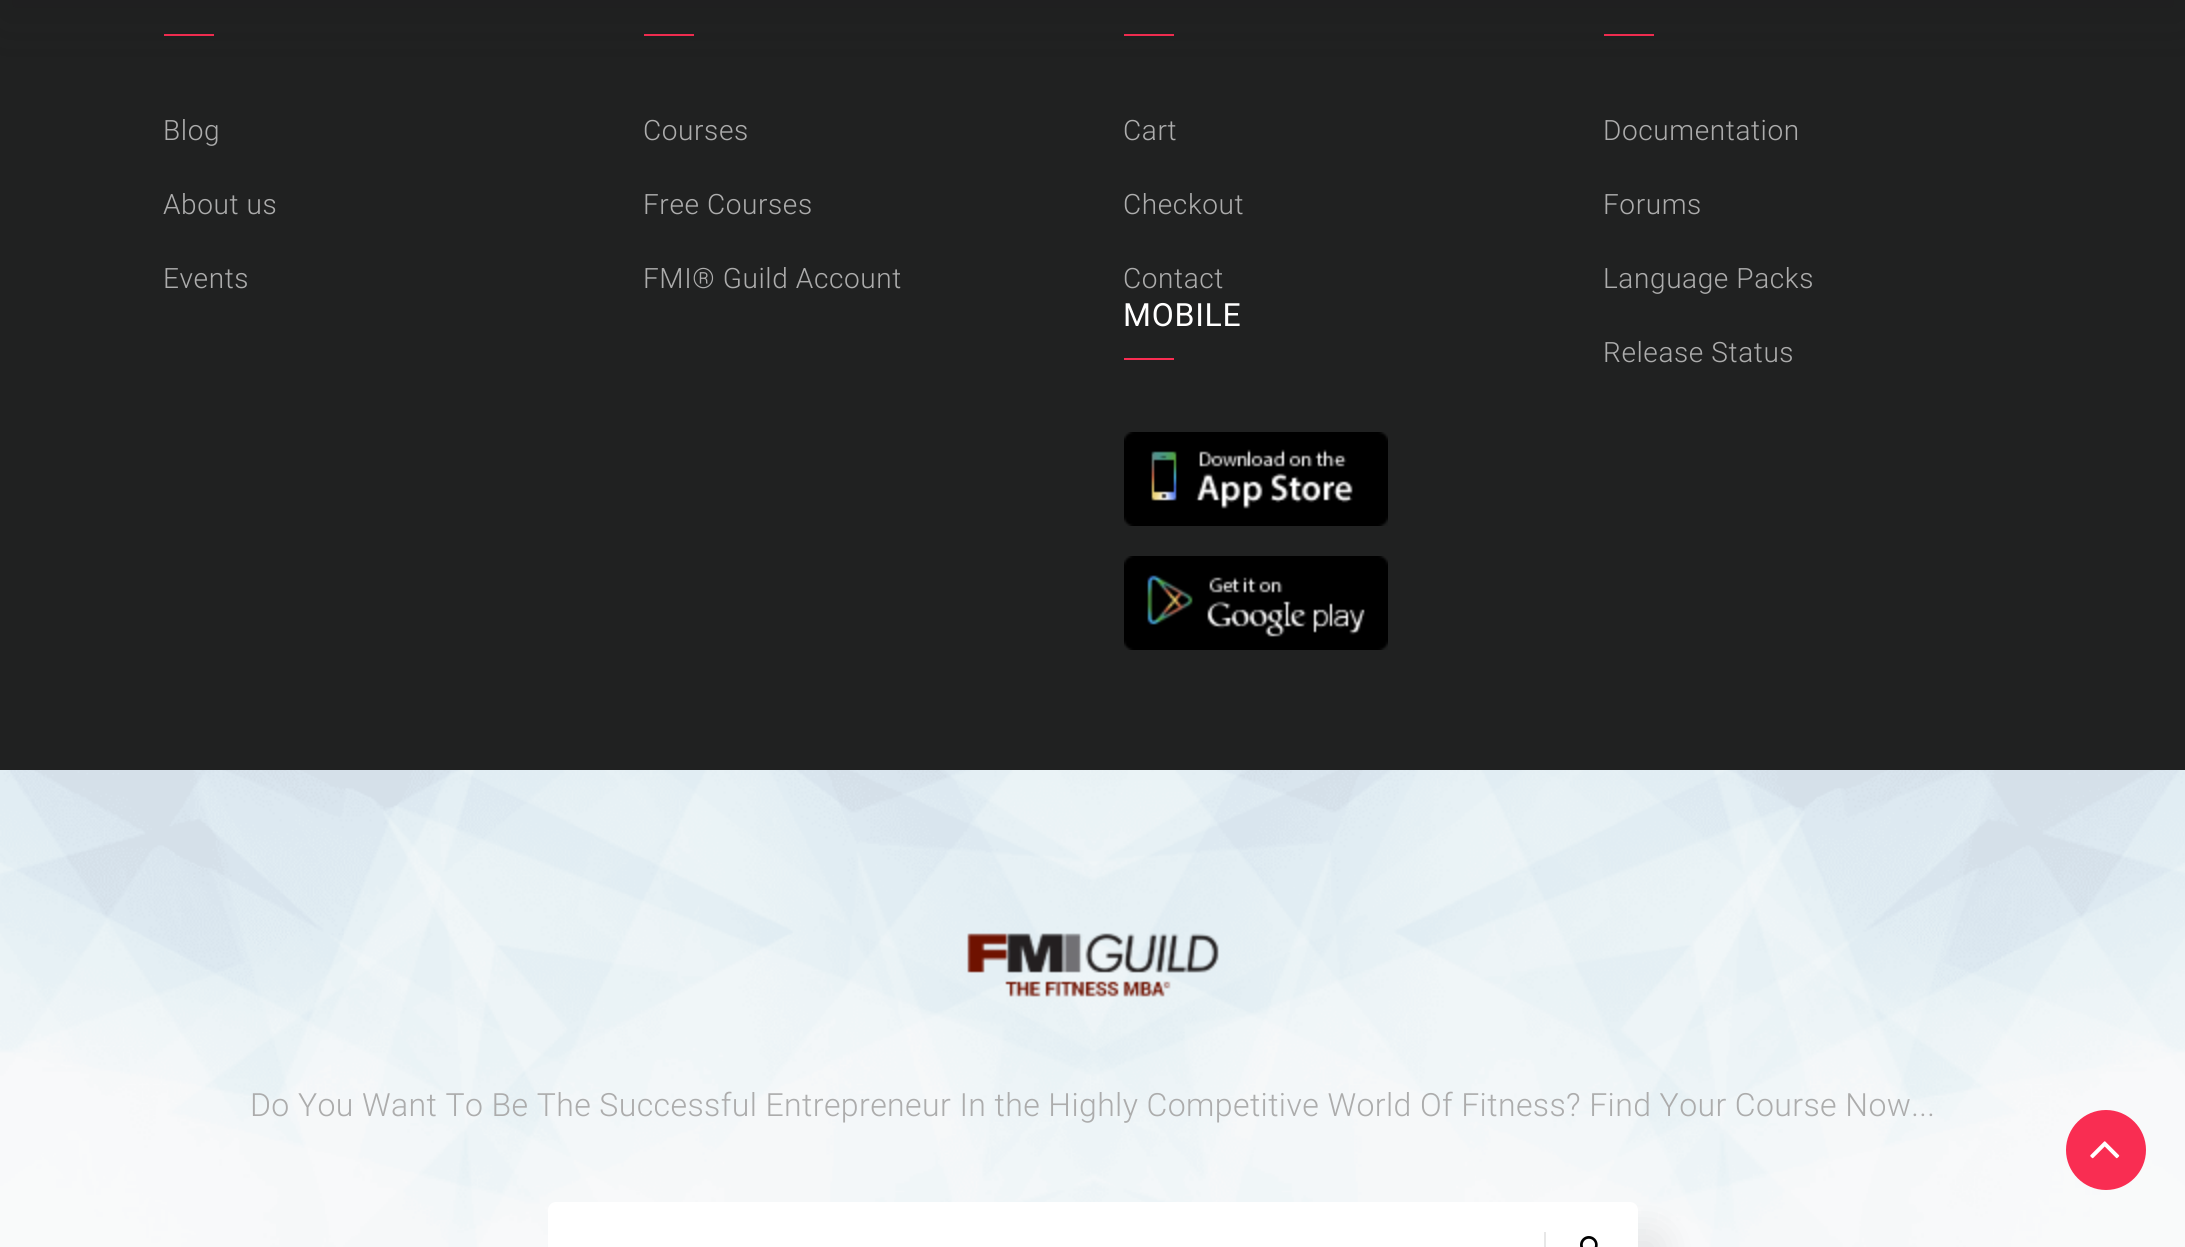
import math
import cairocffi as cairo

surface = cairo.ImageSurface(cairo.FORMAT_RGB24, 2185, 1247)
cr = cairo.Context(surface)
options = cairo.FontOptions()
options.set_hint_metrics(cairo.HINT_METRICS_OFF)
options.set_hint_style(cairo.HINT_STYLE_NONE)
cr.set_font_options(options)
cr.set_miter_limit(4)


def use_color(code):
    cr.set_source_rgb(*(v / 255 for v in bytes.fromhex(code[-6:])))


def spaced_text(x, y, s, letter, word):
    cr.move_to(x, y)
    for ch in s:
        cr.show_text(ch)
        cr.rel_move_to(letter + word * (ch == ' '), 0)


def round_rect(x, y, w, h, r):
    cr.new_sub_path()
    for i, (u, v) in enumerate([(x + w - r, y + h - r), (x + r, y + h - r), (x + r, y + r), (x + w - r, y + r)]):
        cr.arc(u, v, r, i * math.pi / 2, (i + 1) * math.pi / 2)
    cr.close_path()


def shadow(x, y, w, h, r, blur, alpha):
    cr.push_group_with_content(cairo.CONTENT_ALPHA)
    cr.set_operator(cairo.OPERATOR_SOURCE)
    for i in range(15, -16, -2):
        e = blur * i / 6
        if min(w, h) + 2 * e > 0:
            cr.set_source_rgba(0, 0, 0, alpha * math.erfc((i - 1) / 8.5) / 2)
            round_rect(x - e, y - e, w + 2 * e, h + 2 * e, max(0, min(r + e + blur * .6, min(w, h) / 2 + e)))
            cr.fill()
    cr.mask(cr.pop_group())


def picture(path, x, y, w, h):
    cr.save()
    cr.set_source_surface(cairo.ImageSurface.create_from_png(path), x, y)
    cr.rectangle(x, y, w, h)
    cr.fill()
    cr.restore()


use_color("#202121")
cr.paint()
use_color("#f92d52")
cr.rectangle(164, 34, 50, 2)
cr.fill()
cr.rectangle(644, 34, 50, 2)
cr.fill()
cr.rectangle(1124, 34, 50, 2)
cr.fill()
cr.rectangle(1604, 34, 50, 2)
cr.fill()
use_color("#181718")
shadow(0, -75, 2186, 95, 0, 25, 0.2)
cr.select_font_face("Roboto Light")
cr.set_font_size(28)
use_color("#acacac")
spaced_text(163, 140, "Blog", 0.6, 0)
spaced_text(163, 214, "About us", 0.6, 0)
spaced_text(163, 288, "Events", 0.6, 0)
spaced_text(643, 140, "Courses", 0.6, 0)
spaced_text(643, 214, "Free Courses", 0.6, 0)
spaced_text(643, 288, "FMI® Guild Account", 0.6, 0)
spaced_text(1123, 140, "Cart", 0.6, 0)
spaced_text(1123, 214, "Checkout", 0.6, 0)
spaced_text(1123, 288, "Contact", 0.6, 0)
cr.select_font_face("Roboto")
cr.set_font_size(32)
use_color("#ffffff")
spaced_text(1123, 326, "MOBILE", 0.75, 0)
use_color("#f92d52")
cr.rectangle(1124, 358, 50, 2)
cr.fill()
picture("img1.png", 1124, 432, 264, 94)
picture("img2.png", 1124, 556, 264, 94)
cr.select_font_face("Roboto Light")
cr.set_font_size(28)
use_color("#acacac")
spaced_text(1603, 140, "Documentation", 0.6, 0)
spaced_text(1603, 214, "Forums", 0.6, 0)
spaced_text(1603, 288, "Language Packs", 0.6, 0)
spaced_text(1603, 362, "Release Status", 0.6, 0)
use_color("#fafafa")
cr.rectangle(0, 770, 2185, 477)
cr.fill()
picture("img3.png", 0, 770, 2185, 477)
picture("img4.png", 967, 933, 252, 64)
cr.set_font_size(32)
use_color("#acacac")
spaced_text(250, 1116, "Do You Want To Be The Successful Entrepreneur In the Highly Competitive World Of Fitness? Find Your Course Now...", 0.4, 0)
use_color("#000000")
shadow(574, 1232, 1090, 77, 8, 18, 0.08)
use_color("#ffffff")
round_rect(548, 1202, 1090, 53, 8)
cr.fill()
use_color("#e7e7e7")
cr.rectangle(1544, 1232, 2, 15)
cr.fill()
picture("img5.png", 1580, 1236, 18, 11)
use_color("#f92d52")
cr.arc(2106, 1150, 40, 0, 2 * math.pi)
cr.fill()
picture("img6.png", 2090, 1141, 30, 18)
surface.write_to_png("result.png")
